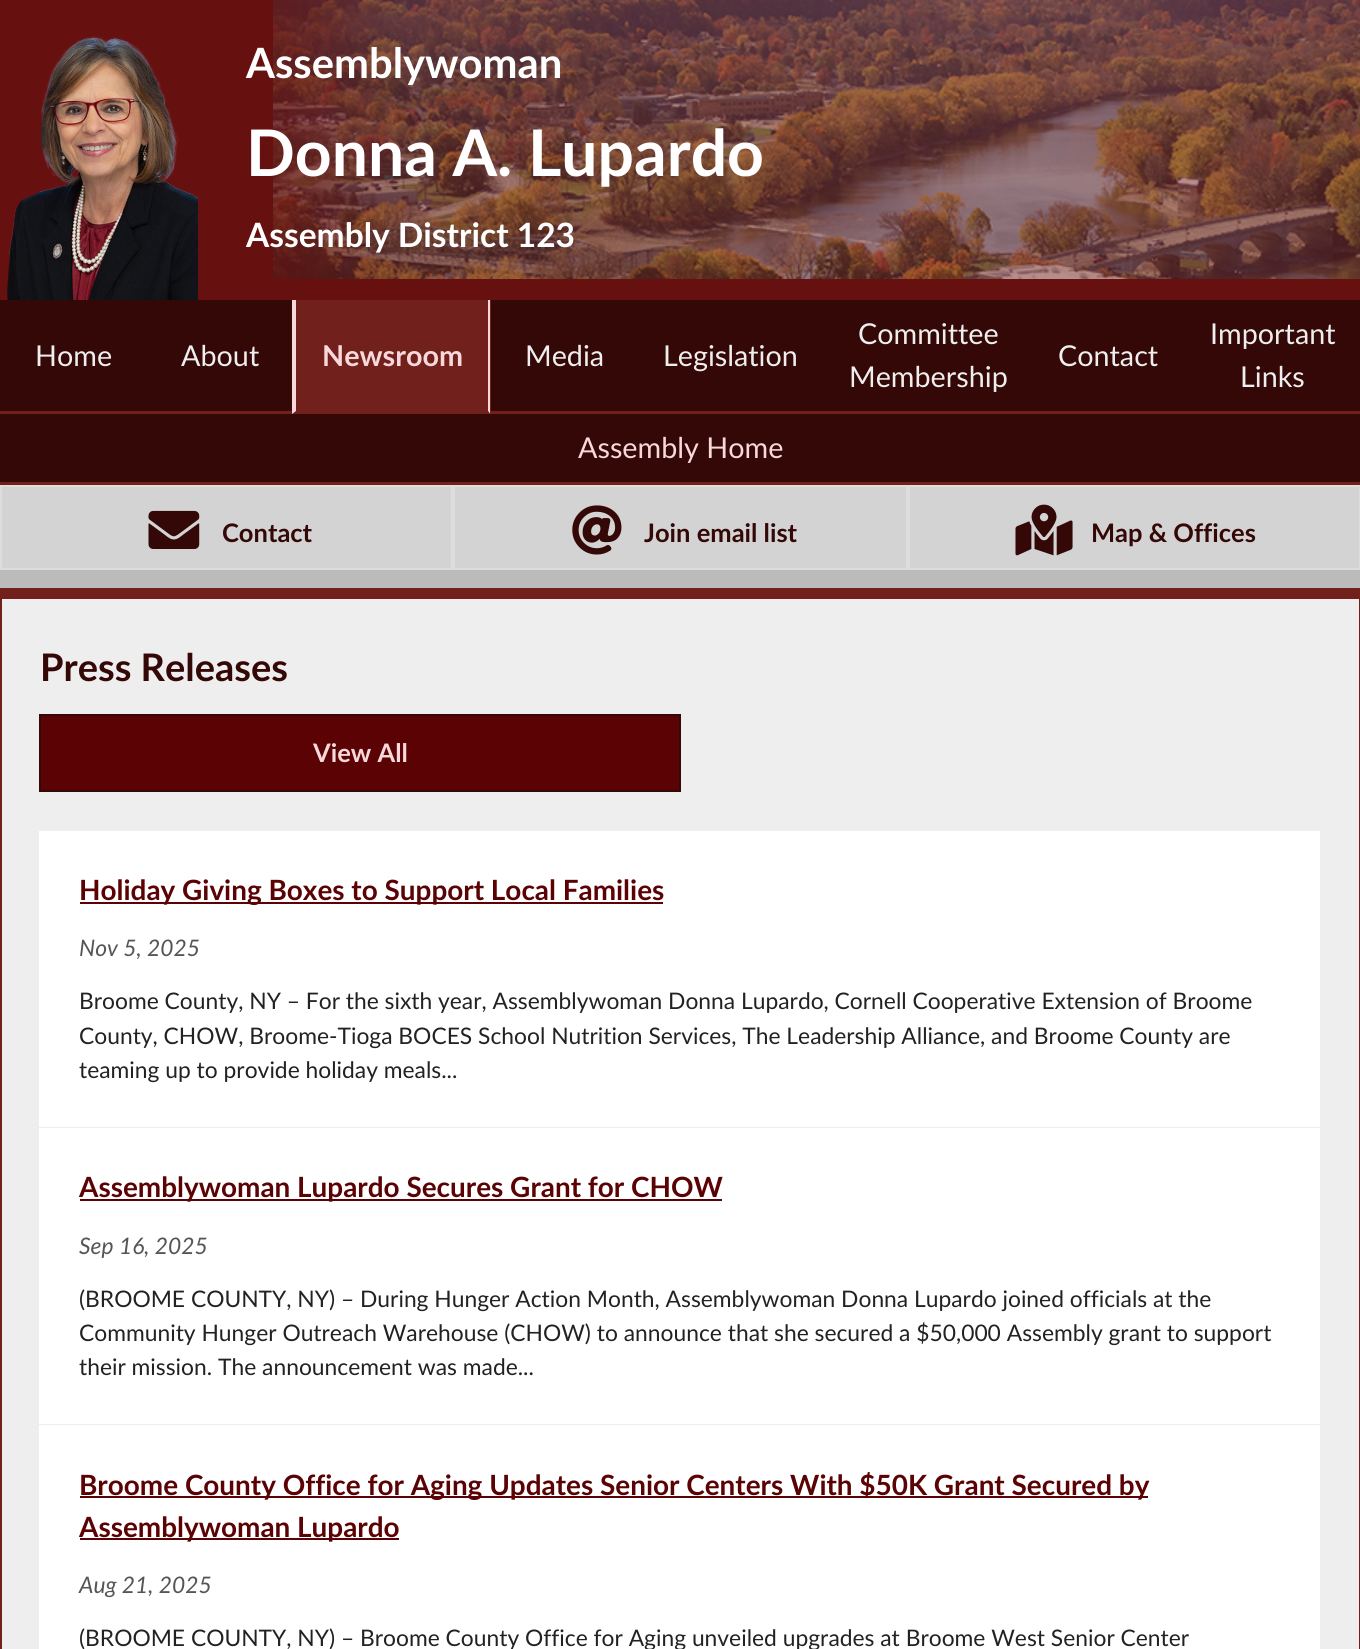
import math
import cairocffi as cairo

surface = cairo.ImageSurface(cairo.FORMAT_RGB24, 1360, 1649)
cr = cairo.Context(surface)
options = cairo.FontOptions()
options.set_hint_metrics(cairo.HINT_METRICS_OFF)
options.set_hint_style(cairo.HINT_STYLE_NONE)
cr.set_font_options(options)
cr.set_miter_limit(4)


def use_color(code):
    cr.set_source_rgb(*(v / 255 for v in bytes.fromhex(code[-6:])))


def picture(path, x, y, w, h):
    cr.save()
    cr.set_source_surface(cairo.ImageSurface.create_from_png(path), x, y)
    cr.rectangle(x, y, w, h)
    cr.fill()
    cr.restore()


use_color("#bbbbbb")
cr.paint()
use_color("#661110")
cr.rectangle(0, 0, 1360, 300)
cr.fill()
picture("img1.png", 273, 0, 1087, 279)
picture("img2.png", 7, 36, 191, 264)
cr.select_font_face("Lato", cairo.FONT_SLANT_NORMAL, cairo.FONT_WEIGHT_BOLD)
cr.set_font_size(41.75)
use_color("#ffffff")
cr.move_to(246, 78)
cr.show_text("Assemblywoman")
cr.set_font_size(64.25)
cr.move_to(246, 176)
cr.show_text("Donna A. Lupardo")
cr.set_font_size(33.5)
cr.move_to(246, 247)
cr.show_text("Assembly District 123")
use_color("#340806")
cr.rectangle(0, 300, 1360, 182)
cr.fill()
use_color("#71201c")
cr.rectangle(0, 411, 293, 3)
cr.fill()
cr.select_font_face("Lato")
cr.set_font_size(28.75)
use_color("#eeeeee")
cr.move_to(35, 366)
cr.show_text("Home")
cr.move_to(181, 366)
cr.show_text("About")
use_color("#71201c")
cr.rectangle(293, 300, 198, 114)
cr.fill()
use_color("#f8d8da")
cr.new_path()
cr.move_to(490, 300)
cr.line_to(490, 414)
cr.line_to(488, 411)
cr.line_to(488, 300)
cr.close_path()
cr.fill()
use_color("#71201c")
cr.new_path()
cr.move_to(490, 414)
cr.line_to(292, 414)
cr.line_to(296, 411)
cr.line_to(488, 411)
cr.close_path()
cr.fill()
use_color("#f8d8da")
cr.new_path()
cr.move_to(292, 414)
cr.line_to(292, 300)
cr.line_to(296, 300)
cr.line_to(296, 411)
cr.close_path()
cr.fill()
cr.select_font_face("Lato", cairo.FONT_SLANT_NORMAL, cairo.FONT_WEIGHT_BOLD)
cr.move_to(322, 366)
cr.show_text("Newsroom")
use_color("#71201c")
cr.rectangle(491, 411, 869, 3)
cr.fill()
cr.select_font_face("Lato")
use_color("#eeeeee")
cr.move_to(525, 366)
cr.show_text("Media")
cr.move_to(663, 366)
cr.show_text("Legislation")
cr.move_to(858, 344)
cr.show_text("Committee")
cr.move_to(849, 387)
cr.show_text("Membership")
cr.move_to(1058, 366)
cr.show_text("Contact")
cr.move_to(1210, 344)
cr.show_text("Important")
cr.move_to(1240, 387)
cr.show_text("Links")
use_color("#71201c")
cr.rectangle(0, 482, 1360, 3)
cr.fill()
use_color("#f8d8da")
cr.move_to(578, 458)
cr.show_text("Assembly Home")
use_color("#d3d3d3")
cr.rectangle(1, 486, 451, 83)
cr.fill_preserve()
use_color("#dddddd")
cr.stroke()
picture("img3.png", 148, 510, 52, 39)
cr.select_font_face("Lato", cairo.FONT_SLANT_NORMAL, cairo.FONT_WEIGHT_BOLD)
cr.set_font_size(25.5)
use_color("#340806")
cr.move_to(222, 542)
cr.show_text("Contact")
use_color("#d3d3d3")
cr.rectangle(454, 486, 453, 83)
cr.fill_preserve()
use_color("#dddddd")
cr.stroke()
picture("img4.png", 572, 505, 50, 50)
use_color("#340806")
cr.move_to(644, 542)
cr.show_text("Join email list")
use_color("#d3d3d3")
cr.rectangle(909, 486, 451, 83)
cr.fill_preserve()
use_color("#dddddd")
cr.stroke()
picture("img5.png", 1015, 504, 58, 52)
use_color("#340806")
cr.move_to(1091, 542)
cr.show_text("Map & Offices")
use_color("#eeeeee")
cr.rectangle(2, 599, 1357, 1050)
cr.fill()
use_color("#71201c")
cr.rectangle(2, 588, 1357, 11)
cr.fill()
cr.rectangle(1359, 588, 1, 1061)
cr.fill()
cr.rectangle(0, 588, 2, 1061)
cr.fill()
cr.set_font_size(38)
use_color("#340806")
cr.move_to(40, 681)
cr.show_text("Press Releases")
use_color("#5a0204")
cr.rectangle(40, 715, 640, 76)
cr.fill_preserve()
use_color("#340806")
cr.stroke()
cr.set_font_size(25.5)
use_color("#f8d8da")
cr.move_to(313, 762)
cr.show_text("View All")
use_color("#ffffff")
cr.rectangle(39, 831, 1281, 296)
cr.fill()
use_color("#5a0204")
cr.rectangle(80, 902, 583, 2)
cr.fill()
cr.set_font_size(27.9)
cr.move_to(79, 900)
cr.show_text("Holiday Giving Boxes to Support Local Families")
cr.select_font_face("Lato", cairo.FONT_SLANT_ITALIC)
cr.set_font_size(22.82)
use_color("#555555")
cr.move_to(79, 956)
cr.show_text("Nov 5, 2025")
cr.select_font_face("Lato")
use_color("#222222")
cr.move_to(79, 1009)
cr.show_text("Broome County, NY – For the sixth year, Assemblywoman Donna Lupardo, Cornell Cooperative Extension of Broome")
cr.move_to(79, 1044)
cr.show_text("County, CHOW, Broome-Tioga BOCES School Nutrition Services, The Leadership Alliance, and Broome County are")
cr.move_to(79, 1078)
cr.show_text("teaming up to provide holiday meals...")
use_color("#ffffff")
cr.rectangle(39, 1128, 1281, 296)
cr.fill()
use_color("#5a0204")
cr.rectangle(80, 1199, 642, 2)
cr.fill()
cr.select_font_face("Lato", cairo.FONT_SLANT_NORMAL, cairo.FONT_WEIGHT_BOLD)
cr.set_font_size(27.9)
cr.move_to(79, 1197)
cr.show_text("Assemblywoman Lupardo Secures Grant for CHOW")
cr.select_font_face("Lato", cairo.FONT_SLANT_ITALIC)
cr.set_font_size(22.82)
use_color("#555555")
cr.move_to(79, 1254)
cr.show_text("Sep 16, 2025")
cr.select_font_face("Lato")
use_color("#222222")
cr.move_to(79, 1307)
cr.show_text("(BROOME COUNTY, NY) – During Hunger Action Month, Assemblywoman Donna Lupardo joined officials at the")
cr.move_to(79, 1341)
cr.show_text("Community Hunger Outreach Warehouse (CHOW) to announce that she secured a $50,000 Assembly grant to support")
cr.move_to(79, 1375)
cr.show_text("their mission. The announcement was made...")
use_color("#ffffff")
cr.rectangle(39, 1425, 1281, 224)
cr.fill()
use_color("#5a0204")
cr.rectangle(80, 1496, 1068, 2)
cr.fill()
cr.select_font_face("Lato", cairo.FONT_SLANT_NORMAL, cairo.FONT_WEIGHT_BOLD)
cr.set_font_size(27.9)
cr.move_to(79, 1495)
cr.show_text("Broome County Office for Aging Updates Senior Centers With $50K Grant Secured by")
cr.rectangle(80, 1538, 319, 2)
cr.fill()
cr.move_to(79, 1537)
cr.show_text("Assemblywoman Lupardo")
cr.select_font_face("Lato", cairo.FONT_SLANT_ITALIC)
cr.set_font_size(22.82)
use_color("#555555")
cr.move_to(79, 1593)
cr.show_text("Aug 21, 2025")
cr.select_font_face("Lato")
use_color("#222222")
cr.move_to(79, 1646)
cr.show_text("(BROOME COUNTY, NY) – Broome County Office for Aging unveiled upgrades at Broome West Senior Center")
surface.write_to_png("result.png")
